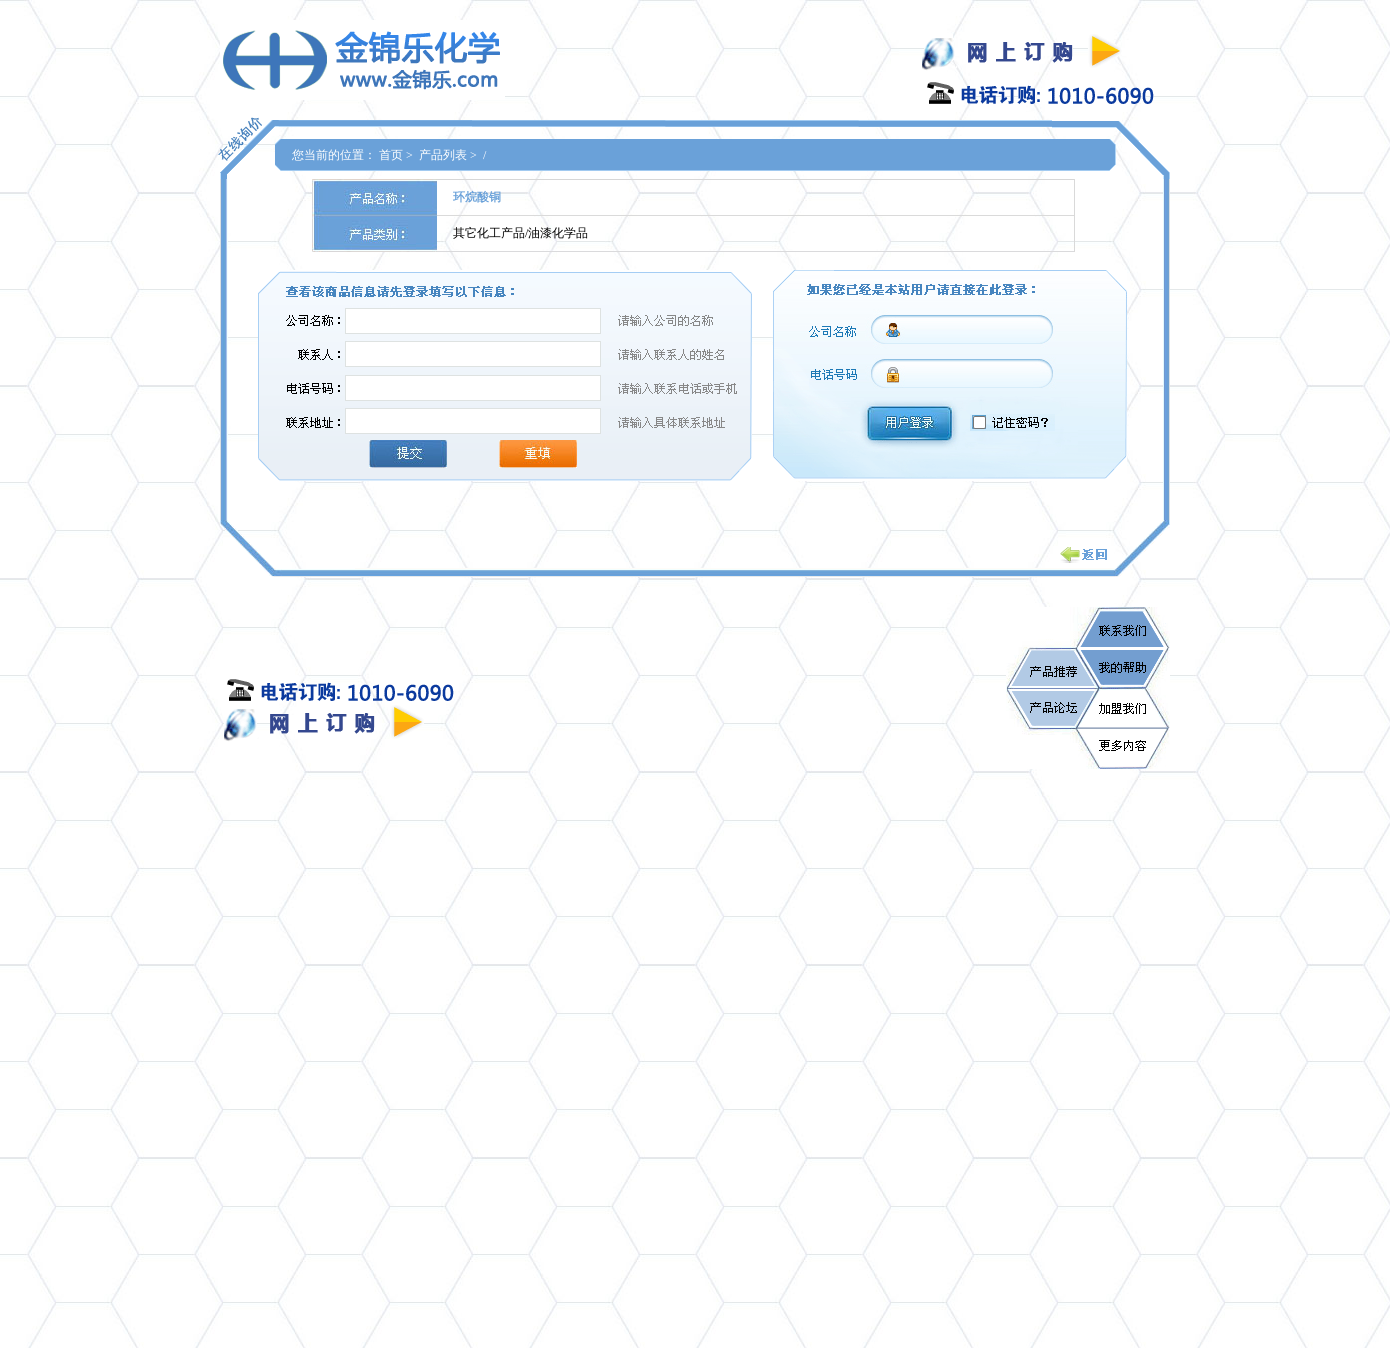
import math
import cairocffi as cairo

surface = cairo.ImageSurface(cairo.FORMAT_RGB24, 1390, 1348)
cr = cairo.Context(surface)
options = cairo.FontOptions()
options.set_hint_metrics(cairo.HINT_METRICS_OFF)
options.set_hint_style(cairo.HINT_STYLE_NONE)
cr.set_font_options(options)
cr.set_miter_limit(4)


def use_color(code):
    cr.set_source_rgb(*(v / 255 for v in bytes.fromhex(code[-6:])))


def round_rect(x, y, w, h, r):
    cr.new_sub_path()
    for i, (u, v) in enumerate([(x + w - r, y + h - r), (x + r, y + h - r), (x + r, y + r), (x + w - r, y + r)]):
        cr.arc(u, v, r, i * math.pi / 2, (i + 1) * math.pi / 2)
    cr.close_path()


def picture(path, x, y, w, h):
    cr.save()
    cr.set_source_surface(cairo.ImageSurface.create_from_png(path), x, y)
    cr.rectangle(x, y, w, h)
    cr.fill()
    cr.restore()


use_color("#ffffff")
cr.paint()
picture("img1.png", 0, 0, 1390, 1348)
picture("img2.png", 220, 20, 285, 80)
picture("img3.png", 922, 34, 199, 37)
picture("img4.png", 927, 82, 227, 22)
picture("img5.png", 220, 120, 950, 59)
picture("img6.png", 218, 117, 44, 44)
cr.select_font_face("WenQuanYi Zen Hei Medium")
cr.set_font_size(12)
use_color("#ffffff")
cr.move_to(292, 159)
cr.show_text("您当前的位置：")
cr.move_to(379, 159)
cr.show_text("首页")
cr.select_font_face("Liberation Serif")
cr.move_to(406, 159)
cr.show_text(">")
cr.select_font_face("WenQuanYi Zen Hei Medium")
cr.move_to(419, 159)
cr.show_text("产品列表")
cr.select_font_face("Liberation Serif")
cr.move_to(470, 159)
cr.show_text(">")
cr.move_to(483, 159)
cr.show_text("/")
picture("img7.png", 221, 179, 948, 341)
use_color("#dadfe2")
cr.rectangle(1169, 179, 1, 341)
cr.fill()
cr.rectangle(220, 179, 1, 341)
cr.fill()
picture("img8.png", 312, 179, 125, 73)
picture("img9.png", 437, 179, 637, 73)
cr.select_font_face("WenQuanYi Zen Hei", cairo.FONT_SLANT_NORMAL, cairo.FONT_WEIGHT_BOLD)
use_color("#6aa1d9")
cr.move_to(453, 201)
cr.show_text("环烷酸铜")
cr.select_font_face("WenQuanYi Zen Hei Medium")
use_color("#000000")
cr.move_to(453, 237)
cr.show_text("其它化工产品")
cr.select_font_face("Liberation Serif")
cr.move_to(525, 237)
cr.show_text("/")
cr.select_font_face("WenQuanYi Zen Hei Medium")
cr.move_to(528, 237)
cr.show_text("油漆化学品")
use_color("#d9d9d9")
cr.rectangle(1074, 179, 1, 73)
cr.fill()
picture("img10.png", 258, 270, 494, 211)
cr.rectangle(345.5, 308.5, 255, 25)
use_color("#dee2e1")
cr.set_line_width(1)
cr.stroke()
cr.rectangle(345.5, 341.5, 255, 25)
cr.stroke()
cr.rectangle(345.5, 375.5, 255, 25)
cr.stroke()
cr.rectangle(345.5, 408.5, 255, 25)
cr.stroke()
picture("img11.png", 369, 440, 78, 28)
picture("img12.png", 499, 440, 78, 28)
picture("img13.png", 773, 270, 354, 211)
picture("img14.png", 867, 406, 85, 34)
use_color("#ffffff")
round_rect(973.5, 416.5, 12, 12, 1.5)
cr.fill_preserve()
use_color("#767676")
cr.stroke()
picture("img15.png", 220, 520, 950, 57)
picture("img16.png", 1060, 547, 47, 16)
picture("img17.png", 227, 679, 227, 22)
picture("img18.png", 224, 705, 200, 37)
picture("img19.png", 1006, 607, 164, 162)
surface.write_to_png("result.png")
